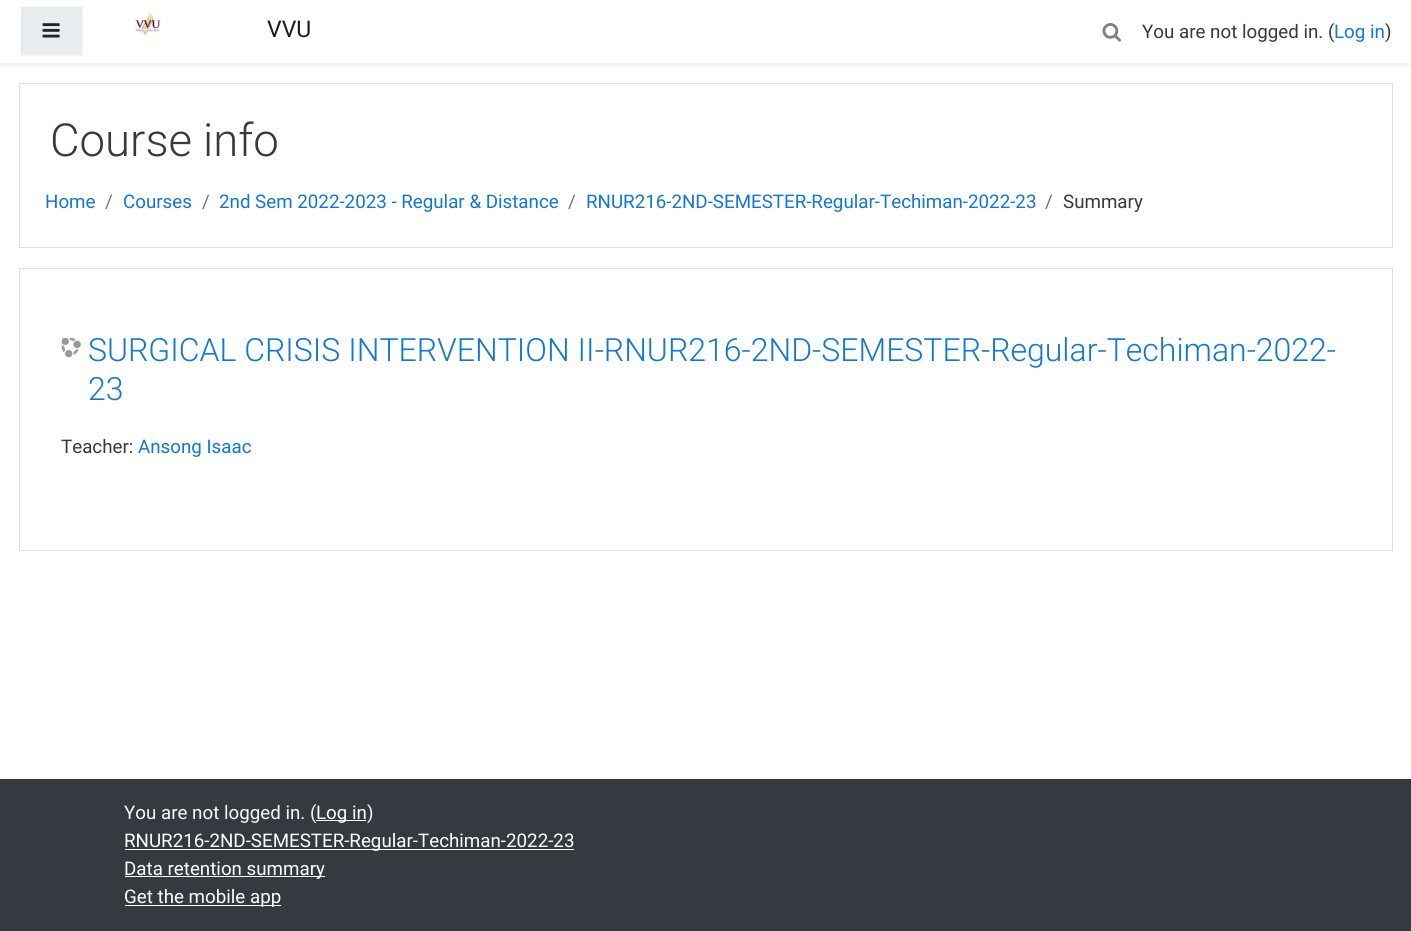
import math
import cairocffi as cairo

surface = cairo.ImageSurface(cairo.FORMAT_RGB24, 1411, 931)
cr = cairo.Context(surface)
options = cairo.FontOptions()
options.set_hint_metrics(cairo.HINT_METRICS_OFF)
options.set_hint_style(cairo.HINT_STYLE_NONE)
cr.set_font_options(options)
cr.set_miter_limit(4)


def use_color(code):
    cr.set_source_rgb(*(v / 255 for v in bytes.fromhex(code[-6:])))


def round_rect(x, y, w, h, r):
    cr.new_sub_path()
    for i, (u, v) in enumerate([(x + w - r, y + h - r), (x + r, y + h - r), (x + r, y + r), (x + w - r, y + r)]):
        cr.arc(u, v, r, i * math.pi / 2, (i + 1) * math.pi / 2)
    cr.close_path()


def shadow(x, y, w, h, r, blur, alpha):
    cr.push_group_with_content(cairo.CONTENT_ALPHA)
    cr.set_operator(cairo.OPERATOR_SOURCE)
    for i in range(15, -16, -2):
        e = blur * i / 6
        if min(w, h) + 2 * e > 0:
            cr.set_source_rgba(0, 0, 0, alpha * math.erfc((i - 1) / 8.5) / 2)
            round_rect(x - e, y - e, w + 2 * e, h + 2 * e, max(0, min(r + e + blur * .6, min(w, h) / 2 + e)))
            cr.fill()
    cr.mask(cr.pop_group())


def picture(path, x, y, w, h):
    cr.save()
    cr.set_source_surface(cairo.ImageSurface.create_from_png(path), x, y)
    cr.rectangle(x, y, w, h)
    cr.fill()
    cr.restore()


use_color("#ffffff")
cr.paint()
use_color("#000000")
shadow(0, 3, 1411, 62, 0, 2.5, 0.08)
use_color("#ffffff")
cr.rectangle(0, 0, 1411, 63)
cr.fill()
use_color("#e9ecef")
cr.rectangle(20.5, 6.5, 62, 49)
cr.fill_preserve()
use_color("#f8f9fa")
cr.set_line_width(1)
cr.stroke()
picture("img1.png", 42, 23, 18, 15)
picture("img2.png", 135, 11, 26, 27)
cr.select_font_face("Roboto")
cr.set_font_size(23)
use_color("#1a1a1a")
cr.move_to(267, 37)
cr.show_text("VVU")
picture("img3.png", 1102, 23, 19, 19)
cr.set_font_size(18.75)
use_color("#343a40")
cr.move_to(1142, 38)
cr.show_text("You are not logged in. (")
use_color("#1177d1")
cr.move_to(1334, 38)
cr.show_text("Log in")
use_color("#343a40")
cr.move_to(1385, 38)
cr.show_text(")")
cr.rectangle(19.5, 83.5, 1373, 164)
use_color("#dfdfdf")
cr.stroke()
cr.select_font_face("Roboto Light")
cr.set_font_size(45.5)
use_color("#343a40")
cr.move_to(50, 156)
cr.show_text("Course info")
cr.select_font_face("Roboto")
cr.set_font_size(18.75)
use_color("#1177d1")
cr.move_to(45, 208)
cr.show_text("Home")
use_color("#6c757d")
cr.move_to(105, 208)
cr.show_text("/")
use_color("#1177d1")
cr.move_to(123, 208)
cr.show_text("Courses")
use_color("#6c757d")
cr.move_to(202, 208)
cr.show_text("/")
use_color("#1177d1")
cr.move_to(219, 208)
cr.show_text("2nd Sem 2022-2023 - Regular & Distance")
use_color("#6c757d")
cr.move_to(568, 208)
cr.show_text("/")
use_color("#1177d1")
cr.move_to(586, 208)
cr.show_text("RNUR216-2ND-SEMESTER-Regular-Techiman-2022-23")
use_color("#6c757d")
cr.move_to(1045, 208)
cr.show_text("/")
use_color("#343a40")
cr.move_to(1063, 208)
cr.show_text("Summary")
cr.rectangle(19.5, 268.5, 1373, 282)
use_color("#dfdfdf")
cr.stroke()
picture("img4.png", 61, 338, 20, 20)
cr.select_font_face("Roboto Light")
cr.set_font_size(32)
use_color("#1177d1")
cr.move_to(88, 361)
cr.show_text("SURGICAL CRISIS INTERVENTION II-RNUR216-2ND-SEMESTER-Regular-Techiman-2022-")
cr.move_to(88, 400)
cr.show_text("23")
cr.select_font_face("Roboto")
cr.set_font_size(18.75)
use_color("#343a40")
cr.move_to(61, 453)
cr.show_text("Teacher:")
use_color("#1177d1")
cr.move_to(138, 453)
cr.show_text("Ansong Isaac")
use_color("#343a40")
cr.rectangle(0, 779, 1411, 152)
cr.fill()
use_color("#f8f9fa")
cr.move_to(124, 819)
cr.show_text("You are not logged in. (")
use_color("#ffffff")
cr.rectangle(316, 820, 50, 1)
cr.fill()
cr.move_to(316, 819)
cr.show_text("Log in")
use_color("#f8f9fa")
cr.move_to(367, 819)
cr.show_text(")")
use_color("#ffffff")
cr.rectangle(125, 849, 449, 1)
cr.fill()
cr.move_to(124, 847)
cr.show_text("RNUR216-2ND-SEMESTER-Regular-Techiman-2022-23")
cr.rectangle(125, 876, 200, 1)
cr.fill()
cr.move_to(124, 875)
cr.show_text("Data retention summary")
cr.rectangle(125, 905, 156, 1)
cr.fill()
cr.move_to(124, 903)
cr.show_text("Get the mobile app")
surface.write_to_png("result.png")
